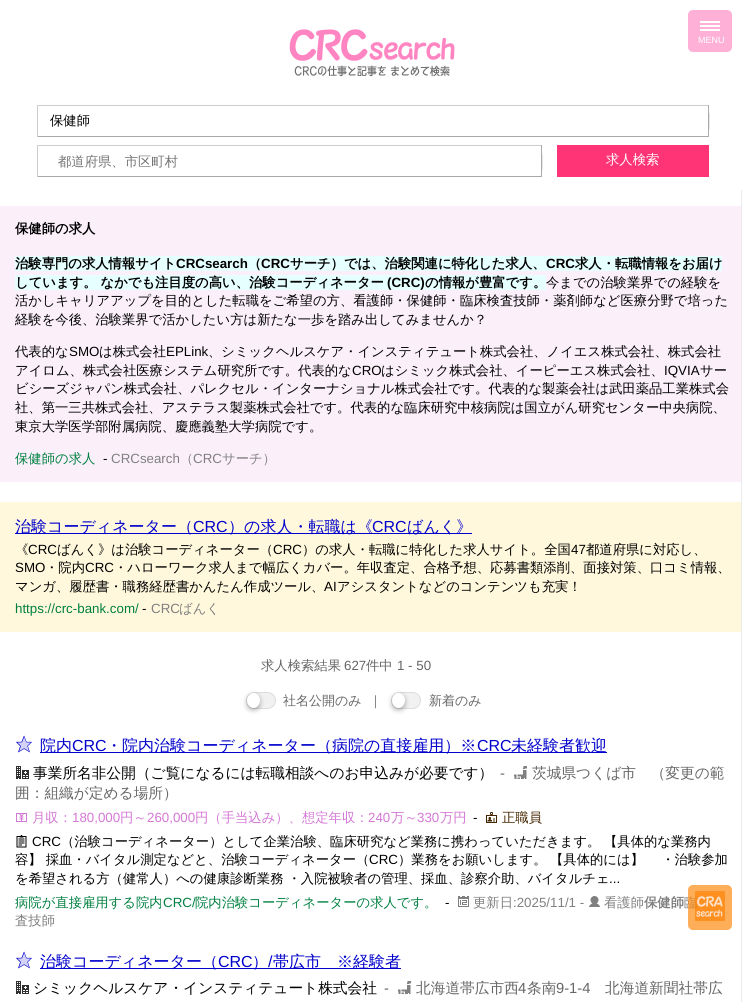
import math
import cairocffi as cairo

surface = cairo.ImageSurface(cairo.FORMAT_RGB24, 742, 1002)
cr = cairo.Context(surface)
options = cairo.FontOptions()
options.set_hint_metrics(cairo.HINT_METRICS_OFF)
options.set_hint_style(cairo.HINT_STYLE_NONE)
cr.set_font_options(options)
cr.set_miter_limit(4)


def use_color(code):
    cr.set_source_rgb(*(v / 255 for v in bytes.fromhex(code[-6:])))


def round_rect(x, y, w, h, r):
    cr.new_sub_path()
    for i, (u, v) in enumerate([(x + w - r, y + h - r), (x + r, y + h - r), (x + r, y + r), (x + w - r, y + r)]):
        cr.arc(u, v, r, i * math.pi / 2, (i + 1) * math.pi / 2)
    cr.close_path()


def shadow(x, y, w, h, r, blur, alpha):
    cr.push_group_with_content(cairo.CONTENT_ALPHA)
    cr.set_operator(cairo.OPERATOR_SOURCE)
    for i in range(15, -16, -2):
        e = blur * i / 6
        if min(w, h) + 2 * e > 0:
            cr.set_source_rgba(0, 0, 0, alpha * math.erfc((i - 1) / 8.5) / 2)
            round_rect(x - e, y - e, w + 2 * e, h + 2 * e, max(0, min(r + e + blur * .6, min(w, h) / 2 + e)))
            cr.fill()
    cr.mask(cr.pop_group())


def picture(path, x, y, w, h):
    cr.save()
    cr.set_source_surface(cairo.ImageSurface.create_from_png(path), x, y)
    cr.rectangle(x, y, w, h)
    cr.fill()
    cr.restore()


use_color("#ffffff")
cr.paint()
use_color("#ffb0d7")
round_rect(688, 10, 44, 42, 5)
cr.fill()
use_color("#ffffff")
cr.rectangle(700, 25, 20, 2)
cr.fill()
cr.rectangle(700, 21, 20, 2)
cr.fill()
cr.rectangle(700, 29, 20, 2)
cr.fill()
cr.select_font_face("Liberation Sans")
cr.set_font_size(9)
cr.move_to(698, 43)
cr.show_text("MENU")
picture("img1.png", 289, 29, 166, 48)
use_color("#e8e8e8")
cr.rectangle(709, 113, 1, 16)
cr.fill()
use_color("#cccccc")
cr.rectangle(37, 105, 672, 1)
cr.fill()
use_color("#aaaaaa")
cr.rectangle(708, 105, 1, 32)
cr.fill()
cr.rectangle(37, 136, 672, 1)
cr.fill()
use_color("#cccccc")
cr.rectangle(37, 105, 1, 32)
cr.fill()
cr.select_font_face("WenQuanYi Zen Hei Medium")
cr.set_font_size(13.33)
use_color("#000000")
cr.move_to(50, 125)
cr.show_text("保健師")
use_color("#e8e8e8")
cr.rectangle(542, 154, 1, 16)
cr.fill()
use_color("#cccccc")
cr.rectangle(37, 145, 505, 1)
cr.fill()
use_color("#aaaaaa")
cr.rectangle(541, 145, 1, 32)
cr.fill()
cr.rectangle(37, 176, 505, 1)
cr.fill()
use_color("#cccccc")
cr.rectangle(37, 145, 1, 32)
cr.fill()
use_color("#757575")
cr.move_to(58, 166)
cr.show_text("都道府県、市区町村")
use_color("#fe3476")
cr.rectangle(557, 145, 152, 32)
cr.fill()
use_color("#ffffff")
cr.move_to(606, 164)
cr.show_text("求人検索")
use_color("#ebebeb")
cr.rectangle(741, 190, 1, 812)
cr.fill()
use_color("#fbf0fa")
cr.rectangle(0, 206, 741, 276)
cr.fill()
cr.select_font_face("WenQuanYi Zen Hei", cairo.FONT_SLANT_NORMAL, cairo.FONT_WEIGHT_BOLD)
use_color("#000000")
cr.move_to(15, 233)
cr.show_text("保健師の求人")
use_color("#e6ffff")
cr.rectangle(15, 256, 707, 15)
cr.fill()
use_color("#000000")
cr.move_to(15, 268)
cr.show_text("治験専門の求人情報サイト")
cr.select_font_face("Liberation Sans", cairo.FONT_SLANT_NORMAL, cairo.FONT_WEIGHT_BOLD)
cr.move_to(176, 268)
cr.show_text("CRCsearch")
cr.select_font_face("WenQuanYi Zen Hei", cairo.FONT_SLANT_NORMAL, cairo.FONT_WEIGHT_BOLD)
cr.move_to(248, 268)
cr.show_text("（")
cr.select_font_face("Liberation Sans", cairo.FONT_SLANT_NORMAL, cairo.FONT_WEIGHT_BOLD)
cr.move_to(261, 268)
cr.show_text("CRC")
cr.select_font_face("WenQuanYi Zen Hei", cairo.FONT_SLANT_NORMAL, cairo.FONT_WEIGHT_BOLD)
cr.move_to(290, 268)
cr.show_text("サーチ）では、治験関連に特化した求人、")
cr.select_font_face("Liberation Sans", cairo.FONT_SLANT_NORMAL, cairo.FONT_WEIGHT_BOLD)
cr.move_to(546, 268)
cr.show_text("CRC")
cr.select_font_face("WenQuanYi Zen Hei", cairo.FONT_SLANT_NORMAL, cairo.FONT_WEIGHT_BOLD)
cr.move_to(575, 268)
cr.show_text("求人・転職情報をお届け")
use_color("#e6ffff")
cr.rectangle(15, 275, 531, 15)
cr.fill()
use_color("#000000")
cr.move_to(15, 287)
cr.show_text("しています。 なかでも注目度の高い、治験コーディネーター")
cr.select_font_face("Liberation Sans", cairo.FONT_SLANT_NORMAL, cairo.FONT_WEIGHT_BOLD)
cr.move_to(387, 287)
cr.show_text("(CRC)")
cr.select_font_face("WenQuanYi Zen Hei", cairo.FONT_SLANT_NORMAL, cairo.FONT_WEIGHT_BOLD)
cr.move_to(425, 287)
cr.show_text("の情報が豊富です。")
cr.select_font_face("WenQuanYi Zen Hei Medium")
cr.move_to(546, 287)
cr.show_text("今までの治験業界での経験を")
cr.move_to(15, 305)
cr.show_text("活かしキャリアアップを目的とした転職をご希望の方、看護師・保健師・臨床検査技師・薬剤師など医療分野で培った")
cr.move_to(15, 324)
cr.show_text("経験を今後、治験業界で活かしたい方は新たな一歩を踏み出してみませんか？")
cr.move_to(15, 356)
cr.show_text("代表的な")
cr.select_font_face("Liberation Sans")
cr.move_to(69, 356)
cr.show_text("SMO")
cr.select_font_face("WenQuanYi Zen Hei Medium")
cr.move_to(99, 356)
cr.show_text("は株式会社")
cr.select_font_face("Liberation Sans")
cr.move_to(166, 356)
cr.show_text("EPLink")
cr.select_font_face("WenQuanYi Zen Hei Medium")
cr.move_to(208, 356)
cr.show_text("、シミックヘルスケア・インスティテュート株式会社、ノイエス株式会社、株式会社")
cr.move_to(15, 375)
cr.show_text("アイロム、株式会社医療システム研究所です。代表的な")
cr.select_font_face("Liberation Sans")
cr.move_to(352, 375)
cr.show_text("CRO")
cr.select_font_face("WenQuanYi Zen Hei Medium")
cr.move_to(381, 375)
cr.show_text("はシミック株式会社、イーピーエス株式会社、")
cr.select_font_face("Liberation Sans")
cr.move_to(664, 375)
cr.show_text("IQVIA")
cr.select_font_face("WenQuanYi Zen Hei Medium")
cr.move_to(700, 375)
cr.show_text("サー")
cr.move_to(15, 393)
cr.show_text("ビシーズジャパン株式会社、パレクセル・インターナショナル株式会社です。代表的な製薬会社は武田薬品工業株式会")
cr.move_to(15, 412)
cr.show_text("社、第一三共株式会社、アステラス製薬株式会社です。代表的な臨床研究中核病院は国立がん研究センター中央病院、")
cr.move_to(15, 431)
cr.show_text("東京大学医学部附属病院、慶應義塾大学病院です。")
use_color("#008040")
cr.move_to(15, 463)
cr.show_text("保健師の求人")
cr.select_font_face("Liberation Sans")
use_color("#000000")
cr.move_to(103, 463)
cr.show_text("-")
use_color("#808080")
cr.move_to(111, 463)
cr.show_text("CRCsearch")
cr.select_font_face("WenQuanYi Zen Hei Medium")
cr.move_to(180, 463)
cr.show_text("（")
cr.select_font_face("Liberation Sans")
cr.move_to(193, 463)
cr.show_text("CRC")
cr.select_font_face("WenQuanYi Zen Hei Medium")
cr.move_to(222, 463)
cr.show_text("サーチ）")
use_color("#fff8dc")
cr.rectangle(0, 502, 741, 130)
cr.fill()
use_color("#0000cc")
cr.rectangle(15, 533, 457, 1)
cr.fill()
cr.set_font_size(16)
cr.move_to(15, 532)
cr.show_text("治験コーディネーター（")
cr.select_font_face("Liberation Sans")
cr.move_to(193, 532)
cr.show_text("CRC")
cr.select_font_face("WenQuanYi Zen Hei Medium")
cr.move_to(228, 532)
cr.show_text("）の求人・転職は《")
cr.select_font_face("Liberation Sans")
cr.move_to(372, 532)
cr.show_text("CRC")
cr.select_font_face("WenQuanYi Zen Hei Medium")
cr.move_to(407, 532)
cr.show_text("ばんく》")
cr.set_font_size(13.33)
use_color("#000000")
cr.move_to(15, 554)
cr.show_text("《")
cr.select_font_face("Liberation Sans")
cr.move_to(28, 554)
cr.show_text("CRC")
cr.select_font_face("WenQuanYi Zen Hei Medium")
cr.move_to(57, 554)
cr.show_text("ばんく》は治験コーディネーター（")
cr.select_font_face("Liberation Sans")
cr.move_to(273, 554)
cr.show_text("CRC")
cr.select_font_face("WenQuanYi Zen Hei Medium")
cr.move_to(302, 554)
cr.show_text("）の求人・転職に特化した求人サイト。全国")
cr.select_font_face("Liberation Sans")
cr.move_to(571, 554)
cr.show_text("47")
cr.select_font_face("WenQuanYi Zen Hei Medium")
cr.move_to(586, 554)
cr.show_text("都道府県に対応し、")
cr.select_font_face("Liberation Sans")
cr.move_to(15, 572)
cr.show_text("SMO")
cr.select_font_face("WenQuanYi Zen Hei Medium")
cr.move_to(45, 572)
cr.show_text("・院内")
cr.select_font_face("Liberation Sans")
cr.move_to(85, 572)
cr.show_text("CRC")
cr.select_font_face("WenQuanYi Zen Hei Medium")
cr.move_to(114, 572)
cr.show_text("・ハローワーク求人まで幅広くカバー。年収査定、合格予想、応募書類添削、面接対策、口コミ情報、")
cr.move_to(15, 591)
cr.show_text("マンガ、履歴書・職務経歴書かんたん作成ツール、")
cr.select_font_face("Liberation Sans")
cr.move_to(324, 591)
cr.show_text("AI")
cr.select_font_face("WenQuanYi Zen Hei Medium")
cr.move_to(337, 591)
cr.show_text("アシスタントなどのコンテンツも充実！")
cr.select_font_face("Liberation Sans")
use_color("#008040")
cr.move_to(15, 613)
cr.show_text("https://crc-bank.com/")
use_color("#000000")
cr.move_to(142, 613)
cr.show_text("-")
use_color("#808080")
cr.move_to(151, 613)
cr.show_text("CRC")
cr.select_font_face("WenQuanYi Zen Hei Medium")
cr.move_to(179, 613)
cr.show_text("ばんく")
use_color("#666666")
cr.move_to(261, 670)
cr.show_text("求人検索結果")
cr.select_font_face("Liberation Sans")
cr.move_to(344, 670)
cr.show_text("627")
cr.select_font_face("WenQuanYi Zen Hei Medium")
cr.move_to(366, 670)
cr.show_text("件中")
cr.select_font_face("Liberation Sans")
cr.move_to(397, 670)
cr.show_text("1 - 50")
use_color("#dddddd")
round_rect(246, 692, 30, 17, 8.5)
cr.fill()
use_color("#f1f1f1")
round_rect(247, 693, 28, 15, 7.5)
cr.fill()
use_color("#000000")
shadow(247, 695, 13, 15, 6.5, 2.5, 0.3)
use_color("#ffffff")
cr.new_path()
cr.move_to(253.5, 693)
cr.curve_to(257, 693, 260, 696.5, 260, 700.5)
cr.curve_to(260, 704.5, 257, 708, 253.5, 708)
cr.curve_to(250, 708, 247, 704.5, 247, 700.5)
cr.curve_to(247, 696.5, 250, 693, 253.5, 693)
cr.close_path()
cr.fill()
cr.select_font_face("WenQuanYi Zen Hei Medium")
cr.set_font_size(13)
use_color("#666666")
cr.move_to(283, 705)
cr.show_text("社名公開のみ")
cr.move_to(369, 705)
cr.show_text("｜")
use_color("#dddddd")
round_rect(391, 692, 30, 17, 8.5)
cr.fill()
use_color("#f1f1f1")
round_rect(392, 693, 28, 15, 7.5)
cr.fill()
use_color("#000000")
shadow(392, 695, 13, 15, 6.5, 2.5, 0.3)
use_color("#ffffff")
cr.new_path()
cr.move_to(398.5, 693)
cr.curve_to(402, 693, 405, 696.5, 405, 700.5)
cr.curve_to(405, 704.5, 402, 708, 398.5, 708)
cr.curve_to(395, 708, 392, 704.5, 392, 700.5)
cr.curve_to(392, 696.5, 395, 693, 398.5, 693)
cr.close_path()
cr.fill()
use_color("#666666")
cr.move_to(429, 705)
cr.show_text("新着のみ")
picture("img2.png", 16, 735, 16, 18)
use_color("#0000cc")
cr.rectangle(40, 752, 567, 1)
cr.fill()
cr.set_font_size(16)
cr.move_to(40, 751)
cr.show_text("院内")
cr.select_font_face("Liberation Sans")
cr.move_to(72, 751)
cr.show_text("CRC")
cr.select_font_face("WenQuanYi Zen Hei Medium")
cr.move_to(106, 751)
cr.show_text("・院内治験コーディネーター（病院の直接雇用）※")
cr.select_font_face("Liberation Sans")
cr.move_to(477, 751)
cr.show_text("CRC")
cr.select_font_face("WenQuanYi Zen Hei Medium")
cr.move_to(511, 751)
cr.show_text("未経験者歓迎")
picture("img3.png", 16, 766, 13, 13)
cr.set_font_size(14.7)
use_color("#000000")
cr.move_to(33, 778)
cr.show_text("事業所名非公開（ご覧になるには転職相談へのお申込みが必要です）")
cr.select_font_face("Liberation Sans")
use_color("#666666")
cr.move_to(500, 778)
cr.show_text("-")
picture("img4.png", 514, 766, 13, 13)
cr.select_font_face("WenQuanYi Zen Hei Medium")
cr.move_to(532, 778)
cr.show_text("茨城県つくば市　（変更の範")
cr.move_to(15, 798)
cr.show_text("囲：組織が定める場所）")
picture("img5.png", 16, 813, 11, 9)
cr.set_font_size(13.33)
use_color("#d478d5")
cr.move_to(32, 822)
cr.show_text("月収：")
cr.select_font_face("Liberation Sans")
cr.move_to(72, 822)
cr.show_text("180,000")
cr.select_font_face("WenQuanYi Zen Hei Medium")
cr.move_to(120, 822)
cr.show_text("円～")
cr.select_font_face("Liberation Sans")
cr.move_to(147, 822)
cr.show_text("260,000")
cr.select_font_face("WenQuanYi Zen Hei Medium")
cr.move_to(195, 822)
cr.show_text("円（手当込み）、想定年収：")
cr.select_font_face("Liberation Sans")
cr.move_to(368, 822)
cr.show_text("240")
cr.select_font_face("WenQuanYi Zen Hei Medium")
cr.move_to(391, 822)
cr.show_text("万～")
cr.select_font_face("Liberation Sans")
cr.move_to(417, 822)
cr.show_text("330")
cr.select_font_face("WenQuanYi Zen Hei Medium")
cr.move_to(440, 822)
cr.show_text("万円")
cr.select_font_face("Liberation Sans")
use_color("#000000")
cr.move_to(473, 822)
cr.show_text("-")
picture("img6.png", 486, 812, 11, 11)
cr.select_font_face("WenQuanYi Zen Hei Medium")
use_color("#452600")
cr.move_to(502, 822)
cr.show_text("正職員")
picture("img7.png", 16, 835, 11, 13)
cr.select_font_face("Liberation Sans")
use_color("#000000")
cr.move_to(32, 846)
cr.show_text("CRC")
cr.select_font_face("WenQuanYi Zen Hei Medium")
cr.move_to(61, 846)
cr.show_text("（治験コーディネーター）として企業治験、臨床研究など業務に携わっていただきます。")
cr.move_to(604, 846)
cr.show_text("【具体的な業務内")
cr.move_to(15, 864)
cr.show_text("容】 採血・バイタル測定などと、治験コーディネーター（")
cr.select_font_face("Liberation Sans")
cr.move_to(369, 864)
cr.show_text("CRC")
cr.select_font_face("WenQuanYi Zen Hei Medium")
cr.move_to(398, 864)
cr.show_text("）業務をお願いします。")
cr.move_to(550, 864)
cr.show_text("【具体的には】　 ・治験参加")
cr.move_to(15, 883)
cr.show_text("を希望される方（健常人）への健康診断業務 ・入院被験者の管理、採血、診察介助、バイタルチェ")
cr.select_font_face("Liberation Sans")
cr.move_to(609, 883)
cr.show_text("...")
cr.select_font_face("WenQuanYi Zen Hei Medium")
use_color("#008040")
cr.move_to(15, 907)
cr.show_text("病院が直接雇用する院内")
cr.select_font_face("Liberation Sans")
cr.move_to(163, 907)
cr.show_text("CRC/")
cr.select_font_face("WenQuanYi Zen Hei Medium")
cr.move_to(195, 907)
cr.show_text("院内治験コーディネーターの求人です。")
cr.select_font_face("Liberation Sans")
use_color("#000000")
cr.move_to(445, 907)
cr.show_text("-")
picture("img8.png", 458, 896, 11, 11)
cr.select_font_face("WenQuanYi Zen Hei Medium")
use_color("#808080")
cr.move_to(473, 907)
cr.show_text("更新日")
cr.select_font_face("Liberation Sans")
cr.move_to(513, 907)
cr.show_text(":2025/11/1 -")
picture("img9.png", 589, 896, 11, 11)
cr.select_font_face("WenQuanYi Zen Hei Medium")
cr.move_to(604, 907)
cr.show_text("看護師")
cr.select_font_face("WenQuanYi Zen Hei", cairo.FONT_SLANT_NORMAL, cairo.FONT_WEIGHT_BOLD)
cr.move_to(644, 907)
cr.show_text("保健師")
cr.select_font_face("WenQuanYi Zen Hei Medium")
cr.move_to(684, 907)
cr.show_text("臨")
cr.move_to(15, 925)
cr.show_text("査技師")
picture("img2.png", 16, 951, 16, 18)
use_color("#0000cc")
cr.rectangle(40, 968, 361, 1)
cr.fill()
cr.set_font_size(16)
cr.move_to(40, 967)
cr.show_text("治験コーディネーター（")
cr.select_font_face("Liberation Sans")
cr.move_to(218, 967)
cr.show_text("CRC")
cr.select_font_face("WenQuanYi Zen Hei Medium")
cr.move_to(252, 967)
cr.show_text("）")
cr.select_font_face("Liberation Sans")
cr.move_to(268, 967)
cr.show_text("/")
cr.select_font_face("WenQuanYi Zen Hei Medium")
cr.move_to(273, 967)
cr.show_text("帯広市　※経験者")
picture("img3.png", 16, 981, 13, 13)
cr.set_font_size(14.7)
use_color("#000000")
cr.move_to(33, 993)
cr.show_text("シミックヘルスケア・インスティテュート株式会社")
cr.select_font_face("Liberation Sans")
use_color("#666666")
cr.move_to(384, 993)
cr.show_text("-")
picture("img4.png", 398, 981, 13, 13)
cr.select_font_face("WenQuanYi Zen Hei Medium")
cr.move_to(416, 993)
cr.show_text("北海道帯広市西")
cr.select_font_face("Liberation Sans")
cr.move_to(518, 993)
cr.show_text("4")
cr.select_font_face("WenQuanYi Zen Hei Medium")
cr.move_to(527, 993)
cr.show_text("条南")
cr.select_font_face("Liberation Sans")
cr.move_to(556, 993)
cr.show_text("9-1-4")
cr.select_font_face("WenQuanYi Zen Hei Medium")
cr.move_to(605, 993)
cr.show_text("北海道新聞社帯広")
cr.set_source_rgba(0.996, 0.506, 0, 0.65)
round_rect(688, 885, 44, 45, 5)
cr.fill()
picture("img10.png", 695, 891, 30, 30)
surface.write_to_png("result.png")
